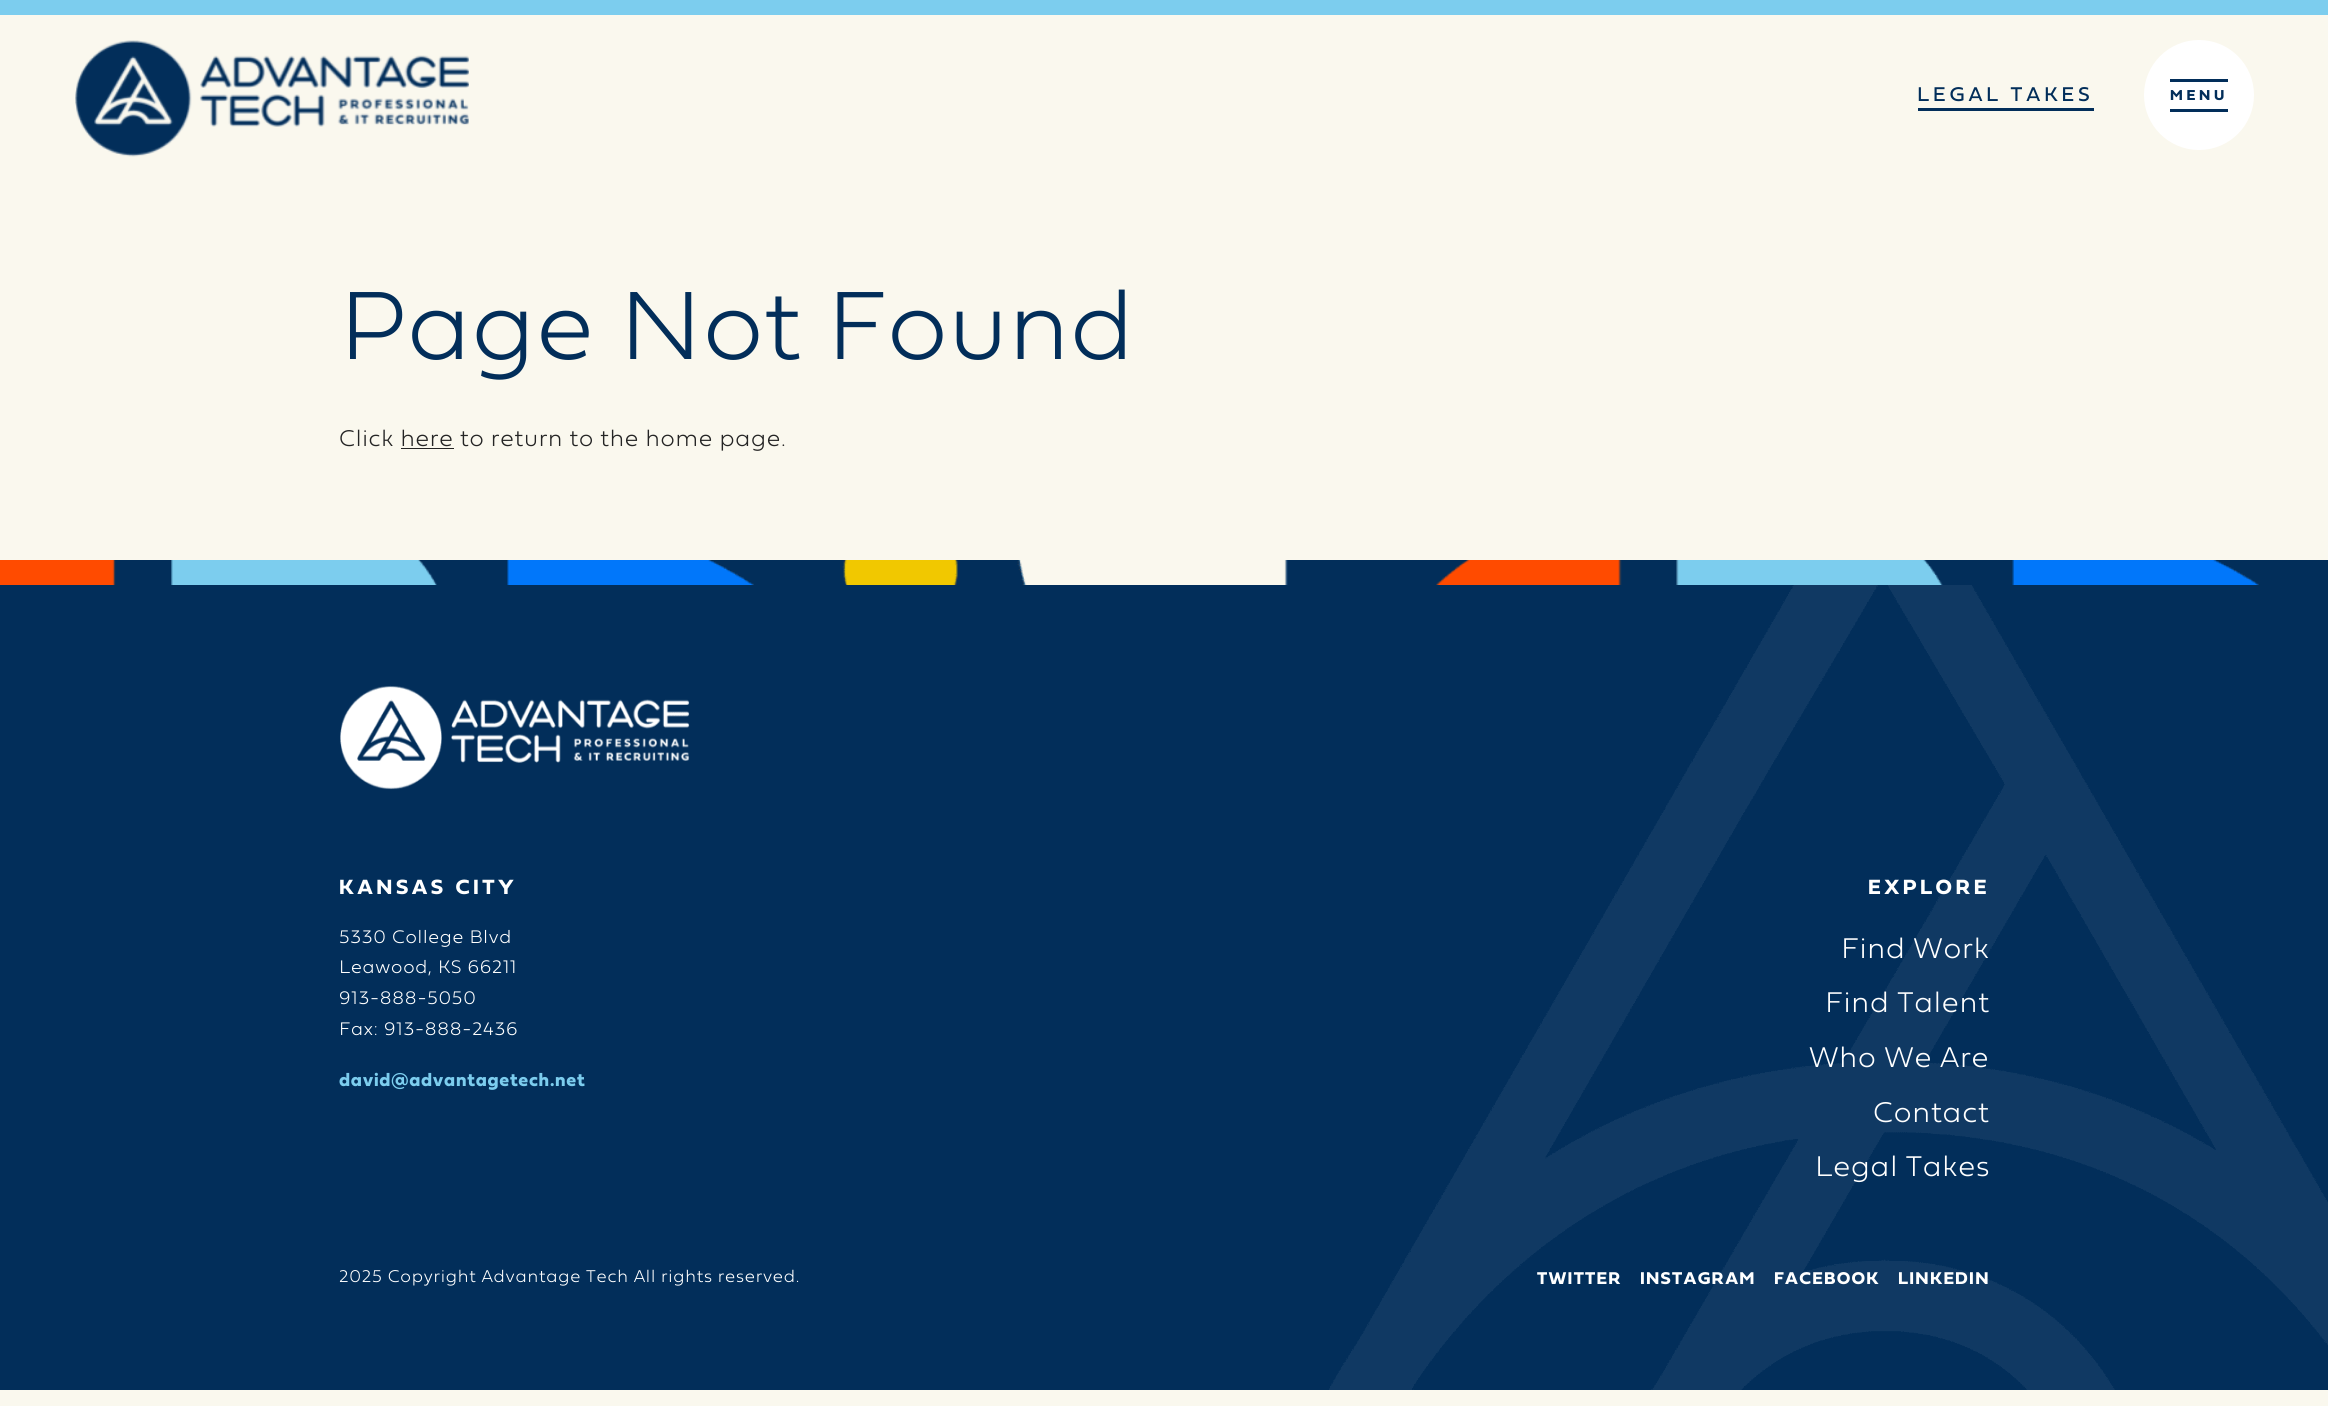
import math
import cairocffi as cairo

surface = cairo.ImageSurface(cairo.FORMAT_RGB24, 2328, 1406)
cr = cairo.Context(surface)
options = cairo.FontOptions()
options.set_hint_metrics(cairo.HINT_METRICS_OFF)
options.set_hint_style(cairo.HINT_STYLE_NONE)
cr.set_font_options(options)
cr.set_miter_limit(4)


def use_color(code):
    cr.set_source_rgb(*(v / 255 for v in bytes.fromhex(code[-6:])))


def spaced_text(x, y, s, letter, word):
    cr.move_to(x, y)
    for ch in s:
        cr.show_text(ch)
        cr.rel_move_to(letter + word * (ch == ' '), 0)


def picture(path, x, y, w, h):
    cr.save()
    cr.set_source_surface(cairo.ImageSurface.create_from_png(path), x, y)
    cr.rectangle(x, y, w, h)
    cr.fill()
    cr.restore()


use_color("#faf8ee")
cr.paint()
use_color("#7ccdee")
cr.rectangle(0, 0, 2328, 15)
cr.fill()
picture("img1.png", 75, 40, 394, 117)
use_color("#022e5a")
cr.rectangle(1918, 108, 176, 3)
cr.fill()
cr.select_font_face("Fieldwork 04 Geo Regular")
cr.set_font_size(20.75)
spaced_text(1917, 101, "LEGAL TAKES", 3.75, 0)
use_color("#ffffff")
cr.new_path()
cr.arc(2199, 95, 55, 0, 2 * math.pi)
cr.fill()
use_color("#022e5a")
cr.rectangle(2170, 79, 58, 3)
cr.fill()
cr.rectangle(2170, 109, 58, 3)
cr.fill()
cr.select_font_face("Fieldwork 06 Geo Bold", cairo.FONT_SLANT_NORMAL, cairo.FONT_WEIGHT_BOLD)
cr.set_font_size(15)
spaced_text(2170, 100, "MENU", 3.75, 0)
cr.select_font_face("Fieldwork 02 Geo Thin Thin")
cr.set_font_size(101)
spaced_text(339, 359, "Page Not Found", 0.75, 0)
cr.set_font_size(23.75)
use_color("#242424")
spaced_text(339, 446, "Click here to return to the home page.", 0.75, 0)
cr.rectangle(401, 448, 53, 1)
cr.fill()
use_color("#022e5a")
cr.rectangle(0, 585, 2328, 805)
cr.fill()
picture("img2.png", 1329, 585, 999, 805)
cr.rectangle(2259, 560, 69, 25)
cr.fill()
picture("img3.png", 0, 560, 2259, 25)
picture("img4.png", 340, 685, 350, 105)
cr.select_font_face("Fieldwork 06 Geo Bold", cairo.FONT_SLANT_NORMAL, cairo.FONT_WEIGHT_BOLD)
cr.set_font_size(21.5)
use_color("#ffffff")
spaced_text(339, 894, "KANSAS CITY", 3.5, 0)
cr.select_font_face("Fieldwork 02 Geo Thin Thin")
cr.set_font_size(19)
spaced_text(339, 943, "5330 College Blvd", 0.75, 0)
spaced_text(339, 973, "Leawood, KS 66211", 0.75, 0)
spaced_text(339, 1004, "913-888-5050", 0.75, 0)
spaced_text(339, 1035, "Fax: 913-888-2436", 0.75, 0)
cr.select_font_face("Fieldwork 06 Geo Bold", cairo.FONT_SLANT_NORMAL, cairo.FONT_WEIGHT_BOLD)
use_color("#7ccdee")
spaced_text(339, 1086, "david@advantagetech.net", 0.75, 0)
cr.set_font_size(21.5)
use_color("#ffffff")
spaced_text(1868, 894, "EXPLORE", 3.5, 0)
cr.select_font_face("Fieldwork 02 Geo Thin Thin")
cr.set_font_size(29.75)
spaced_text(1841, 958, "Find Work", 0.75, 0)
spaced_text(1825, 1012, "Find Talent", 0.75, 0)
spaced_text(1809, 1067, "Who We Are", 0.75, 0)
spaced_text(1873, 1122, "Contact", 0.75, 0)
spaced_text(1815, 1176, "Legal Takes", 0.75, 0)
cr.set_font_size(17.8)
spaced_text(339, 1282, "2025 Copyright Advantage Tech All rights reserved.", 0.75, 0)
cr.select_font_face("Fieldwork 06 Geo Bold", cairo.FONT_SLANT_NORMAL, cairo.FONT_WEIGHT_BOLD)
spaced_text(1537, 1284, "TWITTER", 1.25, 0)
spaced_text(1640, 1284, "INSTAGRAM", 1.25, 0)
spaced_text(1774, 1284, "FACEBOOK", 1.25, 0)
spaced_text(1898, 1284, "LINKEDIN", 1.25, 0)
surface.write_to_png("result.png")
